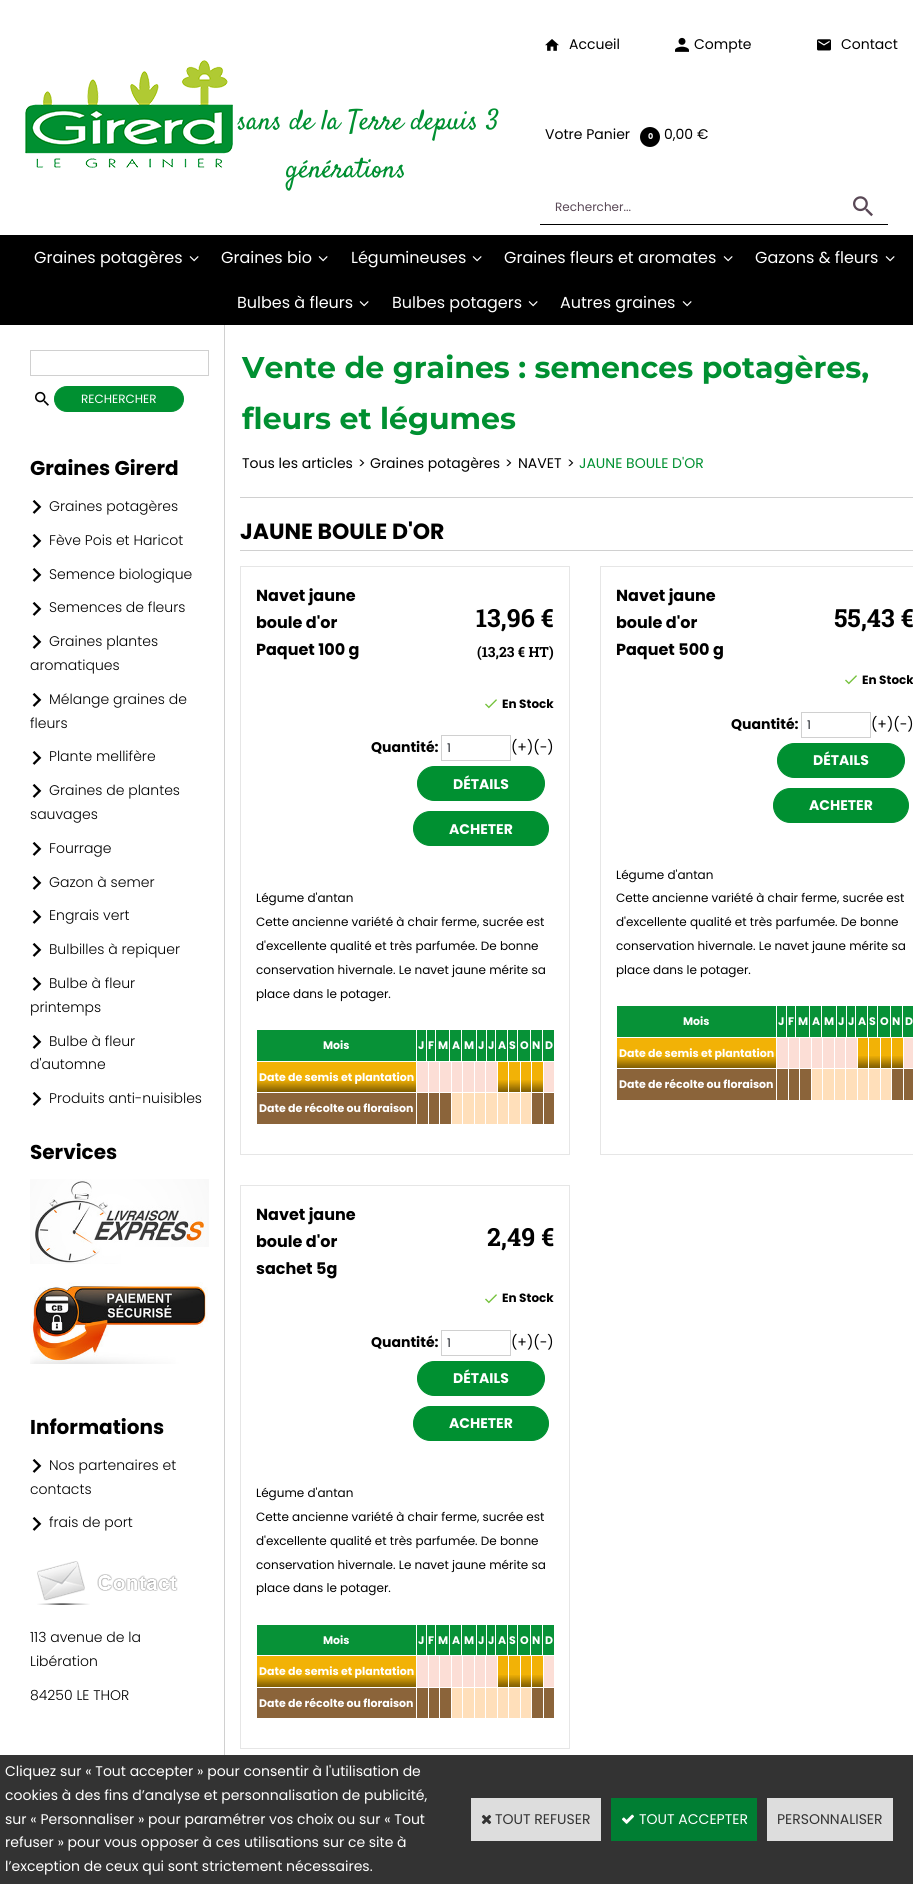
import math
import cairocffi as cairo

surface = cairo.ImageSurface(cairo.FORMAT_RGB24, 913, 1884)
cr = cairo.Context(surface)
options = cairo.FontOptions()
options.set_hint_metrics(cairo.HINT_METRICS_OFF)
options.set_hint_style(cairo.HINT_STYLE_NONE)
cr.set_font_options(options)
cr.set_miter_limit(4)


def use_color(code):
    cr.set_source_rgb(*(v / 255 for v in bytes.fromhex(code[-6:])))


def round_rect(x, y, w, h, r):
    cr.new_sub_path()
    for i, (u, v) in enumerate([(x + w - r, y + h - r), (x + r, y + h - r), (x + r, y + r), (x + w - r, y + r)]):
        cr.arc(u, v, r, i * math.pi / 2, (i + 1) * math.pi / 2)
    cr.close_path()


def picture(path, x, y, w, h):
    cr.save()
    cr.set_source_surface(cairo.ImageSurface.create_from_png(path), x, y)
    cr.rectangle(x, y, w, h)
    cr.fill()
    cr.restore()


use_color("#ffffff")
cr.paint()
picture("img1.png", 25, 60, 208, 108)
cr.select_font_face("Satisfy")
cr.set_font_size(28)
use_color("#009031")
cr.move_to(237, 129)
cr.show_text("sans de la Terre depuis 3")
cr.move_to(286, 177)
cr.show_text("générations")
picture("img2.png", 545, 39, 14, 12)
cr.select_font_face("Poppins")
cr.set_font_size(14)
use_color("#000000")
cr.move_to(569, 49)
cr.show_text("Accueil")
picture("img3.png", 675, 37, 14, 15)
cr.move_to(694, 49)
cr.show_text("Compte")
picture("img4.png", 817, 39, 14, 12)
cr.move_to(841, 49)
cr.show_text("Contact")
cr.move_to(545, 139)
cr.show_text("Votre Panier")
cr.new_path()
cr.arc(650, 137, 10, 0, 2 * math.pi)
cr.fill()
cr.select_font_face("Poppins", cairo.FONT_SLANT_NORMAL, cairo.FONT_WEIGHT_BOLD)
cr.set_font_size(8)
use_color("#ffffff")
cr.move_to(648, 139)
cr.show_text("0")
cr.select_font_face("Poppins")
cr.set_font_size(14)
use_color("#000000")
cr.move_to(664, 139)
cr.show_text("0,00 €")
cr.rectangle(540, 224, 348, 1)
cr.fill()
cr.set_font_size(12)
use_color("#594856")
cr.move_to(555, 211)
cr.show_text("Rechercher...")
picture("img5.png", 853, 196, 20, 21)
use_color("#000000")
cr.rectangle(0, 235, 913, 90)
cr.fill()
cr.set_font_size(16)
use_color("#ffffff")
cr.move_to(34, 263)
cr.show_text("Graines potagères")
picture("img6.png", 189, 256, 10, 6)
cr.move_to(221, 263)
cr.show_text("Graines bio")
picture("img6.png", 318, 256, 10, 6)
cr.move_to(351, 263)
cr.show_text("Légumineuses")
picture("img6.png", 472, 256, 10, 6)
cr.move_to(504, 263)
cr.show_text("Graines fleurs et aromates")
picture("img6.png", 723, 256, 10, 6)
cr.move_to(755, 263)
cr.show_text("Gazons & fleurs")
picture("img6.png", 885, 256, 10, 6)
cr.move_to(237, 308)
cr.show_text("Bulbes à fleurs")
picture("img6.png", 359, 301, 10, 6)
cr.move_to(392, 308)
cr.show_text("Bulbes potagers")
picture("img6.png", 528, 301, 10, 6)
cr.move_to(560, 308)
cr.show_text("Autres graines")
picture("img6.png", 682, 301, 10, 6)
use_color("#d0d0d0")
cr.rectangle(224, 325, 1, 1430)
cr.fill()
cr.rectangle(30.5, 350.5, 178, 25)
cr.set_line_width(1)
cr.stroke()
picture("img7.png", 35, 391, 14, 15)
use_color("#009031")
round_rect(54.5, 386.5, 129, 25, 12.5)
cr.fill_preserve()
cr.stroke()
cr.set_font_size(12)
use_color("#ffffff")
cr.move_to(81, 403)
cr.show_text("RECHERCHER")
cr.select_font_face("Poppins", cairo.FONT_SLANT_NORMAL, cairo.FONT_WEIGHT_BOLD)
cr.set_font_size(20)
use_color("#000000")
cr.move_to(30, 475)
cr.show_text("Graines Girerd")
picture("img8.png", 32, 500, 10, 14)
cr.select_font_face("Poppins Light")
cr.set_font_size(14)
cr.move_to(49, 511)
cr.show_text("Graines potagères")
picture("img8.png", 32, 534, 10, 14)
cr.move_to(49, 545)
cr.show_text("Fève Pois et Haricot")
picture("img8.png", 32, 568, 10, 14)
cr.move_to(49, 579)
cr.show_text("Semence biologique")
picture("img8.png", 32, 602, 10, 14)
cr.move_to(49, 612)
cr.show_text("Semences de fleurs")
picture("img8.png", 32, 635, 10, 14)
cr.move_to(49, 646)
cr.show_text("Graines plantes")
cr.move_to(30, 670)
cr.show_text("aromatiques")
picture("img8.png", 32, 693, 10, 14)
cr.move_to(49, 704)
cr.show_text("Mélange graines de")
cr.move_to(30, 728)
cr.show_text("fleurs")
picture("img8.png", 32, 751, 10, 14)
cr.move_to(49, 761)
cr.show_text("Plante mellifère")
picture("img8.png", 32, 784, 10, 14)
cr.move_to(49, 795)
cr.show_text("Graines de plantes")
cr.move_to(30, 819)
cr.show_text("sauvages")
picture("img8.png", 32, 842, 10, 14)
cr.move_to(49, 853)
cr.show_text("Fourrage")
picture("img8.png", 32, 876, 10, 14)
cr.move_to(49, 887)
cr.show_text("Gazon à semer")
picture("img8.png", 32, 910, 10, 14)
cr.move_to(49, 920)
cr.show_text("Engrais vert")
picture("img8.png", 32, 943, 10, 14)
cr.move_to(49, 954)
cr.show_text("Bulbilles à repiquer")
picture("img8.png", 32, 977, 10, 14)
cr.move_to(49, 988)
cr.show_text("Bulbe à fleur")
cr.move_to(30, 1012)
cr.show_text("printemps")
picture("img8.png", 32, 1035, 10, 14)
cr.move_to(49, 1046)
cr.show_text("Bulbe à fleur")
cr.move_to(30, 1069)
cr.show_text("d'automne")
picture("img8.png", 32, 1092, 10, 14)
cr.move_to(49, 1103)
cr.show_text("Produits anti-nuisibles")
cr.select_font_face("Poppins", cairo.FONT_SLANT_NORMAL, cairo.FONT_WEIGHT_BOLD)
cr.set_font_size(20)
cr.move_to(30, 1159)
cr.show_text("Services")
picture("img9.png", 30, 1179, 179, 85)
picture("img10.png", 30, 1282, 178, 82)
cr.move_to(30, 1434)
cr.show_text("Informations")
picture("img8.png", 32, 1459, 10, 14)
cr.select_font_face("Poppins Light")
cr.set_font_size(14)
cr.move_to(49, 1470)
cr.show_text("Nos partenaires et")
cr.move_to(30, 1494)
cr.show_text("contacts")
picture("img8.png", 32, 1517, 10, 14)
cr.move_to(49, 1527)
cr.show_text("frais de port")
picture("img11.png", 37, 1561, 141, 44)
cr.move_to(30, 1642)
cr.show_text("113 avenue de la")
cr.move_to(30, 1666)
cr.show_text("Libération")
cr.move_to(30, 1700)
cr.show_text("84250 LE THOR")
use_color("#d0d0d0")
cr.rectangle(240, 497, 673, 1)
cr.fill()
cr.select_font_face("Montserrat", cairo.FONT_SLANT_NORMAL, cairo.FONT_WEIGHT_BOLD)
cr.set_font_size(30)
use_color("#009031")
cr.move_to(242, 378)
cr.show_text("Vente de graines : semences potagères,")
cr.move_to(242, 429)
cr.show_text("fleurs et légumes")
cr.select_font_face("Poppins")
cr.set_font_size(14)
use_color("#000000")
cr.move_to(242, 468)
cr.show_text("Tous les articles")
cr.move_to(358, 468)
cr.show_text(">")
cr.move_to(370, 468)
cr.show_text("Graines potagères")
cr.move_to(505, 468)
cr.show_text(">")
cr.move_to(518, 468)
cr.show_text("NAVET")
cr.move_to(567, 468)
cr.show_text(">")
use_color("#009031")
cr.move_to(579, 468)
cr.show_text("JAUNE BOULE D'OR")
use_color("#d0d0d0")
cr.rectangle(240, 550, 673, 1)
cr.fill()
cr.select_font_face("Poppins", cairo.FONT_SLANT_NORMAL, cairo.FONT_WEIGHT_BOLD)
cr.set_font_size(22)
use_color("#000000")
cr.move_to(240, 539)
cr.show_text("JAUNE BOULE D'OR")
cr.rectangle(240.5, 566.5, 329, 588)
use_color("#e6e6e6")
cr.stroke()
cr.set_font_size(16)
use_color("#000000")
cr.move_to(256, 601)
cr.show_text("Navet jaune")
cr.move_to(256, 628)
cr.show_text("boule d'or")
cr.move_to(256, 655)
cr.show_text("Paquet 100 g")
cr.select_font_face("Roboto Slab", cairo.FONT_SLANT_NORMAL, cairo.FONT_WEIGHT_BOLD)
cr.set_font_size(25)
cr.move_to(476, 627)
cr.show_text("13,96 €")
cr.set_font_size(14)
cr.move_to(477, 657)
cr.show_text("(13,23 € HT)")
picture("img12.png", 485, 699, 12, 10)
cr.select_font_face("Poppins", cairo.FONT_SLANT_NORMAL, cairo.FONT_WEIGHT_BOLD)
cr.set_font_size(12)
cr.move_to(502, 708)
cr.show_text("En Stock")
cr.set_font_size(14)
cr.move_to(371, 752)
cr.show_text("Quantité:")
cr.rectangle(441.5, 735.5, 69, 25)
use_color("#d0d0d0")
cr.stroke()
cr.select_font_face("Poppins")
cr.set_font_size(12)
use_color("#1a1f26")
cr.move_to(447, 752)
cr.show_text("1")
cr.set_font_size(14)
use_color("#000000")
cr.move_to(511, 752)
cr.show_text("(+)(-)")
use_color("#009031")
round_rect(417.5, 766.5, 127, 34, 17)
cr.fill_preserve()
cr.stroke()
cr.select_font_face("Poppins", cairo.FONT_SLANT_NORMAL, cairo.FONT_WEIGHT_BOLD)
use_color("#ffffff")
cr.move_to(453, 789)
cr.show_text("DÉTAILS")
use_color("#009031")
round_rect(413.5, 811.5, 135, 34, 17)
cr.fill_preserve()
cr.stroke()
use_color("#ffffff")
cr.move_to(449, 834)
cr.show_text("ACHETER")
cr.select_font_face("Poppins")
cr.set_font_size(12)
use_color("#000000")
cr.move_to(256, 902)
cr.show_text("Légume d'antan")
cr.move_to(256, 926)
cr.show_text("Cette ancienne variété à chair ferme, sucrée est")
cr.move_to(256, 950)
cr.show_text("d'excellente qualité et très parfumée. De bonne")
cr.move_to(256, 974)
cr.show_text("conservation hivernale. Le navet jaune mérite sa")
cr.move_to(256, 998)
cr.show_text("place dans le potager.")
use_color("#079237")
cr.rectangle(257, 1030, 297, 31)
cr.fill()
cr.select_font_face("Poppins", cairo.FONT_SLANT_NORMAL, cairo.FONT_WEIGHT_BOLD)
cr.set_font_size(11)
use_color("#ffffff")
cr.move_to(323, 1049)
cr.show_text("Mois")
cr.rectangle(416, 1029, 1, 32)
cr.fill()
cr.move_to(418, 1049)
cr.show_text("J")
cr.rectangle(426, 1029, 1, 32)
cr.fill()
cr.move_to(428, 1049)
cr.show_text("F")
cr.rectangle(435, 1029, 1, 32)
cr.fill()
cr.move_to(438, 1049)
cr.show_text("M")
cr.rectangle(449, 1029, 1, 32)
cr.fill()
cr.move_to(452, 1049)
cr.show_text("A")
cr.rectangle(461, 1029, 1, 32)
cr.fill()
cr.move_to(464, 1049)
cr.show_text("M")
cr.rectangle(476, 1029, 1, 32)
cr.fill()
cr.move_to(478, 1049)
cr.show_text("J")
cr.rectangle(486, 1029, 1, 32)
cr.fill()
cr.move_to(488, 1049)
cr.show_text("J")
cr.rectangle(495, 1029, 1, 32)
cr.fill()
cr.move_to(498, 1049)
cr.show_text("A")
cr.rectangle(507, 1029, 1, 32)
cr.fill()
cr.move_to(509, 1049)
cr.show_text("S")
cr.rectangle(517, 1029, 1, 32)
cr.fill()
cr.move_to(520, 1049)
cr.show_text("O")
cr.rectangle(530, 1029, 1, 32)
cr.fill()
cr.move_to(532, 1049)
cr.show_text("N")
cr.rectangle(542, 1029, 1, 32)
cr.fill()
cr.move_to(545, 1049)
cr.show_text("D")
use_color("#f2b206")
cr.rectangle(257, 1062, 159, 30)
cr.fill()
picture("img13.png", 257, 1080, 159, 12)
use_color("#ffffff")
cr.move_to(259, 1081)
cr.show_text("Date de semis et plantation")
use_color("#fcded6")
cr.rectangle(417, 1062, 11, 30)
cr.fill()
cr.rectangle(429, 1062, 10, 30)
cr.fill()
cr.rectangle(440, 1062, 11, 30)
cr.fill()
cr.rectangle(452, 1062, 10, 30)
cr.fill()
cr.rectangle(463, 1062, 11, 30)
cr.fill()
cr.rectangle(475, 1062, 10, 30)
cr.fill()
cr.rectangle(486, 1062, 11, 30)
cr.fill()
use_color("#f2b206")
cr.rectangle(498, 1062, 10, 30)
cr.fill()
picture("img14.png", 498, 1080, 10, 12)
cr.rectangle(509, 1062, 11, 30)
cr.fill()
picture("img15.png", 509, 1080, 11, 12)
cr.rectangle(521, 1062, 10, 30)
cr.fill()
picture("img14.png", 521, 1080, 10, 12)
cr.rectangle(532, 1062, 11, 30)
cr.fill()
picture("img15.png", 532, 1080, 11, 12)
use_color("#fcded6")
cr.rectangle(544, 1062, 10, 30)
cr.fill()
use_color("#8b643a")
cr.rectangle(257, 1093, 159, 31)
cr.fill()
use_color("#ffffff")
cr.move_to(259, 1112)
cr.show_text("Date de récolte ou floraison")
use_color("#8b643a")
cr.rectangle(417, 1093, 11, 31)
cr.fill()
cr.rectangle(429, 1093, 10, 31)
cr.fill()
cr.rectangle(440, 1093, 11, 31)
cr.fill()
use_color("#ffdfba")
cr.rectangle(452, 1093, 10, 31)
cr.fill()
cr.rectangle(463, 1093, 11, 31)
cr.fill()
cr.rectangle(475, 1093, 10, 31)
cr.fill()
cr.rectangle(486, 1093, 11, 31)
cr.fill()
cr.rectangle(498, 1093, 10, 31)
cr.fill()
cr.rectangle(509, 1093, 11, 31)
cr.fill()
cr.rectangle(521, 1093, 10, 31)
cr.fill()
use_color("#8b643a")
cr.rectangle(532, 1093, 11, 31)
cr.fill()
cr.rectangle(544, 1093, 10, 31)
cr.fill()
cr.rectangle(600.5, 566.5, 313, 588)
use_color("#e6e6e6")
cr.stroke()
cr.set_font_size(16)
use_color("#000000")
cr.move_to(616, 601)
cr.show_text("Navet jaune")
cr.move_to(616, 628)
cr.show_text("boule d'or")
cr.move_to(616, 655)
cr.show_text("Paquet 500 g")
cr.select_font_face("Roboto Slab", cairo.FONT_SLANT_NORMAL, cairo.FONT_WEIGHT_BOLD)
cr.set_font_size(25)
cr.move_to(834, 627)
cr.show_text("55,43 €")
picture("img12.png", 845, 675, 12, 10)
cr.select_font_face("Poppins", cairo.FONT_SLANT_NORMAL, cairo.FONT_WEIGHT_BOLD)
cr.set_font_size(12)
cr.move_to(862, 684)
cr.show_text("En Stock")
cr.set_font_size(14)
cr.move_to(731, 729)
cr.show_text("Quantité:")
cr.rectangle(801.5, 712.5, 69, 25)
use_color("#d0d0d0")
cr.stroke()
cr.select_font_face("Poppins")
cr.set_font_size(12)
use_color("#1a1f26")
cr.move_to(807, 729)
cr.show_text("1")
cr.set_font_size(14)
use_color("#000000")
cr.move_to(871, 729)
cr.show_text("(+)(-)")
use_color("#009031")
round_rect(777.5, 743.5, 127, 34, 17)
cr.fill_preserve()
cr.stroke()
cr.select_font_face("Poppins", cairo.FONT_SLANT_NORMAL, cairo.FONT_WEIGHT_BOLD)
use_color("#ffffff")
cr.move_to(813, 765)
cr.show_text("DÉTAILS")
use_color("#009031")
round_rect(773.5, 788.5, 135, 34, 17)
cr.fill_preserve()
cr.stroke()
use_color("#ffffff")
cr.move_to(809, 810)
cr.show_text("ACHETER")
cr.select_font_face("Poppins")
cr.set_font_size(12)
use_color("#000000")
cr.move_to(616, 879)
cr.show_text("Légume d'antan")
cr.move_to(616, 902)
cr.show_text("Cette ancienne variété à chair ferme, sucrée est")
cr.move_to(616, 926)
cr.show_text("d'excellente qualité et très parfumée. De bonne")
cr.move_to(616, 950)
cr.show_text("conservation hivernale. Le navet jaune mérite sa")
cr.move_to(616, 974)
cr.show_text("place dans le potager.")
use_color("#079237")
cr.rectangle(617, 1006, 296, 31)
cr.fill()
cr.select_font_face("Poppins", cairo.FONT_SLANT_NORMAL, cairo.FONT_WEIGHT_BOLD)
cr.set_font_size(11)
use_color("#ffffff")
cr.move_to(683, 1025)
cr.show_text("Mois")
cr.rectangle(776, 1005, 1, 32)
cr.fill()
cr.move_to(778, 1025)
cr.show_text("J")
cr.rectangle(786, 1005, 1, 32)
cr.fill()
cr.move_to(788, 1025)
cr.show_text("F")
cr.rectangle(795, 1005, 1, 32)
cr.fill()
cr.move_to(798, 1025)
cr.show_text("M")
cr.rectangle(809, 1005, 1, 32)
cr.fill()
cr.move_to(812, 1025)
cr.show_text("A")
cr.rectangle(821, 1005, 1, 32)
cr.fill()
cr.move_to(824, 1025)
cr.show_text("M")
cr.rectangle(836, 1005, 1, 32)
cr.fill()
cr.move_to(838, 1025)
cr.show_text("J")
cr.rectangle(846, 1005, 1, 32)
cr.fill()
cr.move_to(848, 1025)
cr.show_text("J")
cr.rectangle(855, 1005, 1, 32)
cr.fill()
cr.move_to(858, 1025)
cr.show_text("A")
cr.rectangle(867, 1005, 1, 32)
cr.fill()
cr.move_to(869, 1025)
cr.show_text("S")
cr.rectangle(877, 1005, 1, 32)
cr.fill()
cr.move_to(880, 1025)
cr.show_text("O")
cr.rectangle(890, 1005, 1, 32)
cr.fill()
cr.move_to(892, 1025)
cr.show_text("N")
cr.rectangle(902, 1005, 1, 32)
cr.fill()
cr.move_to(905, 1025)
cr.show_text("D")
use_color("#f2b206")
cr.rectangle(617, 1038, 159, 30)
cr.fill()
picture("img13.png", 617, 1056, 159, 12)
use_color("#ffffff")
cr.move_to(619, 1057)
cr.show_text("Date de semis et plantation")
use_color("#fcded6")
cr.rectangle(777, 1038, 11, 30)
cr.fill()
cr.rectangle(789, 1038, 10, 30)
cr.fill()
cr.rectangle(800, 1038, 11, 30)
cr.fill()
cr.rectangle(812, 1038, 10, 30)
cr.fill()
cr.rectangle(823, 1038, 11, 30)
cr.fill()
cr.rectangle(835, 1038, 10, 30)
cr.fill()
cr.rectangle(846, 1038, 11, 30)
cr.fill()
use_color("#f2b206")
cr.rectangle(858, 1038, 10, 30)
cr.fill()
picture("img14.png", 858, 1056, 10, 12)
cr.rectangle(869, 1038, 11, 30)
cr.fill()
picture("img15.png", 869, 1056, 11, 12)
cr.rectangle(881, 1038, 10, 30)
cr.fill()
picture("img14.png", 881, 1056, 10, 12)
cr.rectangle(892, 1038, 11, 30)
cr.fill()
picture("img15.png", 892, 1056, 11, 12)
use_color("#fcded6")
cr.rectangle(904, 1038, 9, 30)
cr.fill()
use_color("#8b643a")
cr.rectangle(617, 1069, 159, 31)
cr.fill()
use_color("#ffffff")
cr.move_to(619, 1088)
cr.show_text("Date de récolte ou floraison")
use_color("#8b643a")
cr.rectangle(777, 1069, 11, 31)
cr.fill()
cr.rectangle(789, 1069, 10, 31)
cr.fill()
cr.rectangle(800, 1069, 11, 31)
cr.fill()
use_color("#ffdfba")
cr.rectangle(812, 1069, 10, 31)
cr.fill()
cr.rectangle(823, 1069, 11, 31)
cr.fill()
cr.rectangle(835, 1069, 10, 31)
cr.fill()
cr.rectangle(846, 1069, 11, 31)
cr.fill()
cr.rectangle(858, 1069, 10, 31)
cr.fill()
cr.rectangle(869, 1069, 11, 31)
cr.fill()
cr.rectangle(881, 1069, 10, 31)
cr.fill()
use_color("#8b643a")
cr.rectangle(892, 1069, 11, 31)
cr.fill()
cr.rectangle(904, 1069, 9, 31)
cr.fill()
cr.rectangle(240.5, 1185.5, 329, 563)
use_color("#e6e6e6")
cr.stroke()
cr.set_font_size(16)
use_color("#000000")
cr.move_to(256, 1220)
cr.show_text("Navet jaune")
cr.move_to(256, 1247)
cr.show_text("boule d'or")
cr.move_to(256, 1274)
cr.show_text("sachet 5g")
cr.select_font_face("Roboto Slab", cairo.FONT_SLANT_NORMAL, cairo.FONT_WEIGHT_BOLD)
cr.set_font_size(25)
cr.move_to(487, 1246)
cr.show_text("2,49 €")
picture("img12.png", 485, 1294, 12, 10)
cr.select_font_face("Poppins", cairo.FONT_SLANT_NORMAL, cairo.FONT_WEIGHT_BOLD)
cr.set_font_size(12)
cr.move_to(502, 1302)
cr.show_text("En Stock")
cr.set_font_size(14)
cr.move_to(371, 1347)
cr.show_text("Quantité:")
cr.rectangle(441.5, 1330.5, 69, 25)
use_color("#d0d0d0")
cr.stroke()
cr.select_font_face("Poppins")
cr.set_font_size(12)
use_color("#1a1f26")
cr.move_to(447, 1347)
cr.show_text("1")
cr.set_font_size(14)
use_color("#000000")
cr.move_to(511, 1347)
cr.show_text("(+)(-)")
use_color("#009031")
round_rect(417.5, 1361.5, 127, 34, 17)
cr.fill_preserve()
cr.stroke()
cr.select_font_face("Poppins", cairo.FONT_SLANT_NORMAL, cairo.FONT_WEIGHT_BOLD)
use_color("#ffffff")
cr.move_to(453, 1383)
cr.show_text("DÉTAILS")
use_color("#009031")
round_rect(413.5, 1406.5, 135, 34, 17)
cr.fill_preserve()
cr.stroke()
use_color("#ffffff")
cr.move_to(449, 1428)
cr.show_text("ACHETER")
cr.select_font_face("Poppins")
cr.set_font_size(12)
use_color("#000000")
cr.move_to(256, 1497)
cr.show_text("Légume d'antan")
cr.move_to(256, 1521)
cr.show_text("Cette ancienne variété à chair ferme, sucrée est")
cr.move_to(256, 1545)
cr.show_text("d'excellente qualité et très parfumée. De bonne")
cr.move_to(256, 1569)
cr.show_text("conservation hivernale. Le navet jaune mérite sa")
cr.move_to(256, 1592)
cr.show_text("place dans le potager.")
use_color("#079237")
cr.rectangle(257, 1625, 297, 30)
cr.fill()
cr.select_font_face("Poppins", cairo.FONT_SLANT_NORMAL, cairo.FONT_WEIGHT_BOLD)
cr.set_font_size(11)
use_color("#ffffff")
cr.move_to(323, 1644)
cr.show_text("Mois")
cr.rectangle(416, 1624, 1, 31)
cr.fill()
cr.move_to(418, 1644)
cr.show_text("J")
cr.rectangle(426, 1624, 1, 31)
cr.fill()
cr.move_to(428, 1644)
cr.show_text("F")
cr.rectangle(435, 1624, 1, 31)
cr.fill()
cr.move_to(438, 1644)
cr.show_text("M")
cr.rectangle(449, 1624, 1, 31)
cr.fill()
cr.move_to(452, 1644)
cr.show_text("A")
cr.rectangle(461, 1624, 1, 31)
cr.fill()
cr.move_to(464, 1644)
cr.show_text("M")
cr.rectangle(476, 1624, 1, 31)
cr.fill()
cr.move_to(478, 1644)
cr.show_text("J")
cr.rectangle(486, 1624, 1, 31)
cr.fill()
cr.move_to(488, 1644)
cr.show_text("J")
cr.rectangle(495, 1624, 1, 31)
cr.fill()
cr.move_to(498, 1644)
cr.show_text("A")
cr.rectangle(507, 1624, 1, 31)
cr.fill()
cr.move_to(509, 1644)
cr.show_text("S")
cr.rectangle(517, 1624, 1, 31)
cr.fill()
cr.move_to(520, 1644)
cr.show_text("O")
cr.rectangle(530, 1624, 1, 31)
cr.fill()
cr.move_to(532, 1644)
cr.show_text("N")
cr.rectangle(542, 1624, 1, 31)
cr.fill()
cr.move_to(545, 1644)
cr.show_text("D")
use_color("#f2b206")
cr.rectangle(257, 1656, 159, 31)
cr.fill()
picture("img13.png", 257, 1675, 159, 12)
use_color("#ffffff")
cr.move_to(259, 1675)
cr.show_text("Date de semis et plantation")
use_color("#fcded6")
cr.rectangle(417, 1656, 11, 31)
cr.fill()
cr.rectangle(429, 1656, 10, 31)
cr.fill()
cr.rectangle(440, 1656, 11, 31)
cr.fill()
cr.rectangle(452, 1656, 10, 31)
cr.fill()
cr.rectangle(463, 1656, 11, 31)
cr.fill()
cr.rectangle(475, 1656, 10, 31)
cr.fill()
cr.rectangle(486, 1656, 11, 31)
cr.fill()
use_color("#f2b206")
cr.rectangle(498, 1656, 10, 31)
cr.fill()
picture("img14.png", 498, 1675, 10, 12)
cr.rectangle(509, 1656, 11, 31)
cr.fill()
picture("img15.png", 509, 1675, 11, 12)
cr.rectangle(521, 1656, 10, 31)
cr.fill()
picture("img14.png", 521, 1675, 10, 12)
cr.rectangle(532, 1656, 11, 31)
cr.fill()
picture("img15.png", 532, 1675, 11, 12)
use_color("#fcded6")
cr.rectangle(544, 1656, 10, 31)
cr.fill()
use_color("#8b643a")
cr.rectangle(257, 1688, 159, 30)
cr.fill()
use_color("#ffffff")
cr.move_to(259, 1707)
cr.show_text("Date de récolte ou floraison")
use_color("#8b643a")
cr.rectangle(417, 1688, 11, 30)
cr.fill()
cr.rectangle(429, 1688, 10, 30)
cr.fill()
cr.rectangle(440, 1688, 11, 30)
cr.fill()
use_color("#ffdfba")
cr.rectangle(452, 1688, 10, 30)
cr.fill()
cr.rectangle(463, 1688, 11, 30)
cr.fill()
cr.rectangle(475, 1688, 10, 30)
cr.fill()
cr.rectangle(486, 1688, 11, 30)
cr.fill()
cr.rectangle(498, 1688, 10, 30)
cr.fill()
cr.rectangle(509, 1688, 11, 30)
cr.fill()
cr.rectangle(521, 1688, 10, 30)
cr.fill()
use_color("#8b643a")
cr.rectangle(532, 1688, 11, 30)
cr.fill()
cr.rectangle(544, 1688, 10, 30)
cr.fill()
use_color("#333333")
cr.rectangle(0, 1755, 913, 129)
cr.fill()
cr.select_font_face("Poppins")
cr.set_font_size(14)
use_color("#ffffff")
cr.move_to(5, 1776)
cr.show_text("Cliquez sur « Tout accepter » pour consentir à l'utilisation de")
cr.move_to(5, 1800)
cr.show_text("cookies à des fins d’analyse et personnalisation de publicité,")
cr.move_to(5, 1824)
cr.show_text("sur « Personnaliser » pour paramétrer vos choix ou sur « Tout")
cr.move_to(5, 1847)
cr.show_text("refuser » pour vous opposer à ces utilisations sur ce site à")
cr.move_to(5, 1871)
cr.show_text("l’exception de ceux qui sont strictement nécessaires.")
use_color("#dddddd")
cr.rectangle(471, 1798, 130, 43)
cr.fill()
picture("img16.png", 481, 1814, 11, 11)
use_color("#333333")
cr.move_to(495, 1824)
cr.show_text("TOUT REFUSER")
use_color("#007e33")
cr.rectangle(611, 1798, 146, 43)
cr.fill()
picture("img17.png", 622, 1814, 12, 10)
use_color("#ffffff")
cr.move_to(639, 1824)
cr.show_text("TOUT ACCEPTER")
use_color("#dddddd")
cr.rectangle(767, 1798, 126, 43)
cr.fill()
use_color("#333333")
cr.move_to(777, 1824)
cr.show_text("PERSONNALISER")
surface.write_to_png("result.png")
